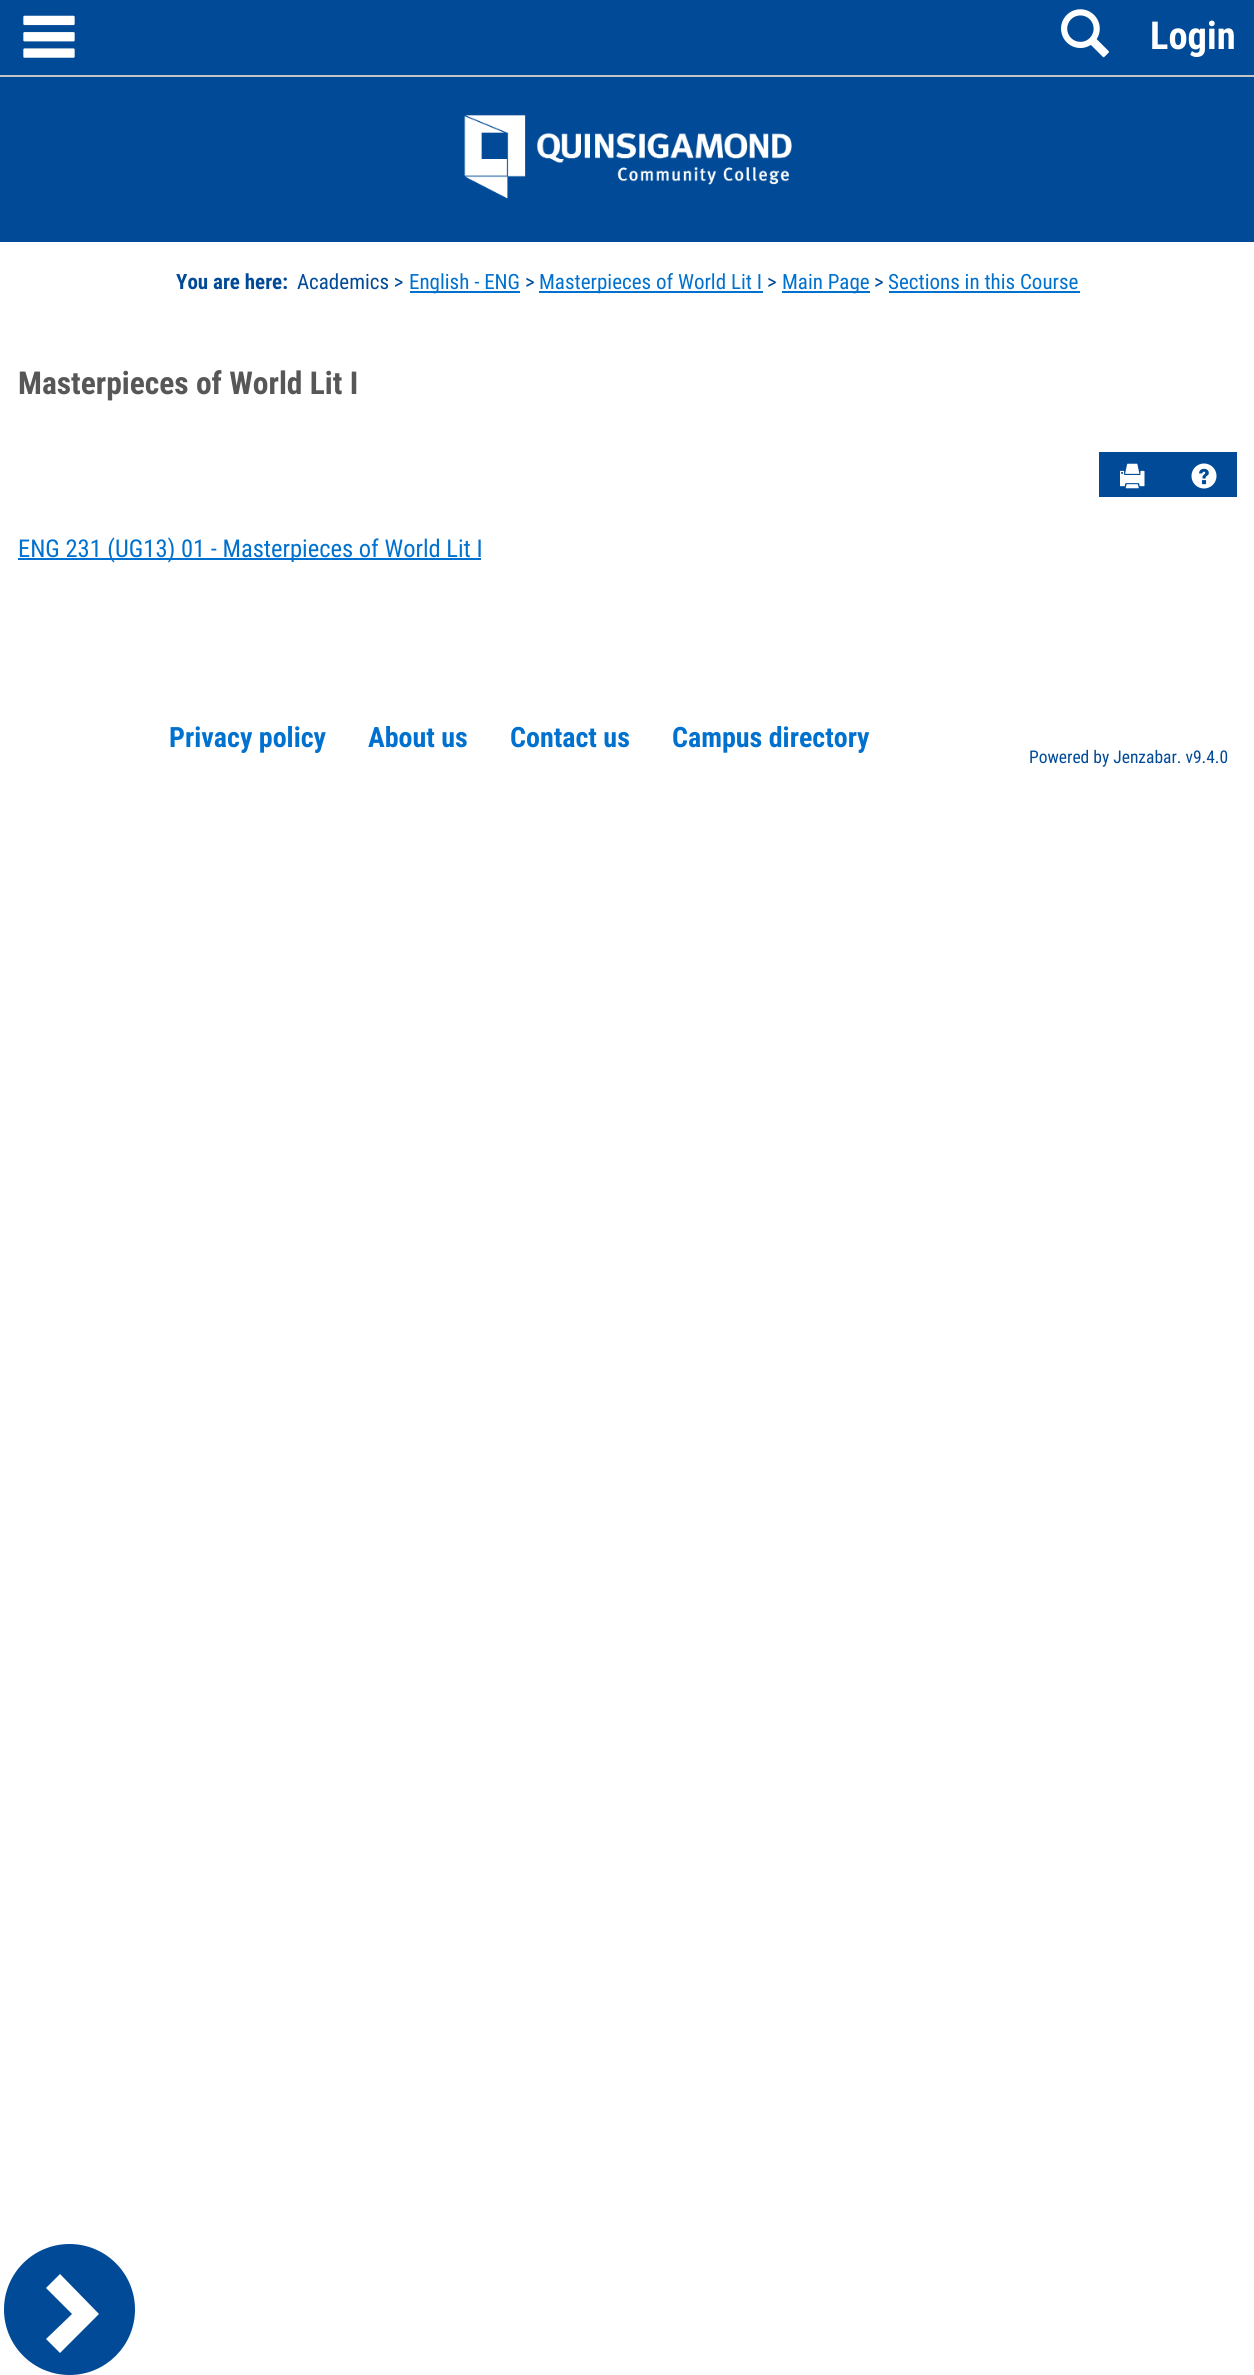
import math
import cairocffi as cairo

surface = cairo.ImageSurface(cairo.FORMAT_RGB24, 1254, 2375)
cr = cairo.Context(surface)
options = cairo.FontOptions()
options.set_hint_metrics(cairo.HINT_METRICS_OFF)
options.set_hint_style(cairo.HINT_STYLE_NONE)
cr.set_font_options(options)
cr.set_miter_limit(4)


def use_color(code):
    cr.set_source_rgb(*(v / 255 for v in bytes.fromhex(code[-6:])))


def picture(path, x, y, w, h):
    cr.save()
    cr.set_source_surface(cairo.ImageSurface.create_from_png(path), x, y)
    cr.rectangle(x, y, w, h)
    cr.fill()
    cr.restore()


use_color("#ffffff")
cr.paint()
use_color("#004a97")
cr.rectangle(0, 0, 1254, 75)
cr.fill()
picture("img1.png", 23, 15, 52, 43)
picture("img2.png", 1061, 9, 48, 49)
cr.select_font_face("Roboto Condensed", cairo.FONT_SLANT_NORMAL, cairo.FONT_WEIGHT_BOLD)
cr.set_font_size(38.5)
use_color("#ffffff")
cr.move_to(1150, 49)
cr.show_text("Login")
use_color("#c5c5c5")
cr.rectangle(0, 75, 1254, 2)
cr.fill()
use_color("#004a97")
cr.rectangle(0, 77, 1254, 165)
cr.fill()
picture("img3.png", 464, 115, 328, 84)
cr.set_font_size(21)
cr.move_to(176, 289)
cr.show_text("You are here:")
cr.select_font_face("Roboto Condensed")
cr.move_to(297, 289)
cr.show_text("Academics >")
use_color("#0071cf")
cr.rectangle(410, 291, 110, 2)
cr.fill()
cr.move_to(409, 289)
cr.show_text("English - ENG")
use_color("#004a97")
cr.move_to(525, 289)
cr.show_text(">")
use_color("#0071cf")
cr.rectangle(539, 291, 224, 2)
cr.fill()
cr.move_to(539, 289)
cr.show_text("Masterpieces of World Lit I")
use_color("#004a97")
cr.move_to(767, 289)
cr.show_text(">")
use_color("#0071cf")
cr.rectangle(782, 291, 88, 2)
cr.fill()
cr.move_to(782, 289)
cr.show_text("Main Page")
use_color("#004a97")
cr.move_to(874, 289)
cr.show_text(">")
use_color("#0071cf")
cr.move_to(888, 289)
cr.show_text("Sections in this Course")
cr.rectangle(889, 291, 191, 2)
cr.fill()
cr.select_font_face("Roboto Condensed", cairo.FONT_SLANT_NORMAL, cairo.FONT_WEIGHT_BOLD)
cr.set_font_size(31.5)
use_color("#575757")
cr.move_to(18, 394)
cr.show_text("Masterpieces of World Lit I")
use_color("#004a97")
cr.rectangle(1099, 452, 138, 45)
cr.fill()
picture("img4.png", 1120, 463, 25, 26)
picture("img5.png", 1191, 463, 26, 26)
use_color("#0071cf")
cr.rectangle(18, 558, 463, 2)
cr.fill()
cr.select_font_face("Roboto Condensed")
cr.set_font_size(24.5)
cr.move_to(18, 557)
cr.show_text("ENG 231 (UG13) 01 - Masterpieces of World Lit I")
use_color("#004a97")
cr.new_path()
cr.arc(69.5, 2309.5, 65.5, 0, 2 * math.pi)
cr.fill()
use_color("#ffffff")
cr.new_path()
cr.move_to(60, 2353)
cr.line_to(46, 2339)
cr.line_to(72, 2314)
cr.line_to(46, 2288)
cr.line_to(60, 2274)
cr.line_to(99, 2314)
cr.close_path()
cr.fill()
cr.select_font_face("Roboto Condensed", cairo.FONT_SLANT_NORMAL, cairo.FONT_WEIGHT_BOLD)
cr.set_font_size(28)
use_color("#0071cf")
cr.move_to(169, 747)
cr.show_text("Privacy policy")
cr.move_to(368, 747)
cr.show_text("About us")
cr.move_to(510, 747)
cr.show_text("Contact us")
cr.move_to(672, 747)
cr.show_text("Campus directory")
cr.select_font_face("Roboto Condensed")
cr.set_font_size(17.5)
use_color("#004a97")
cr.move_to(1029, 763)
cr.show_text("Powered by Jenzabar. v9.4.0")
surface.write_to_png("result.png")
